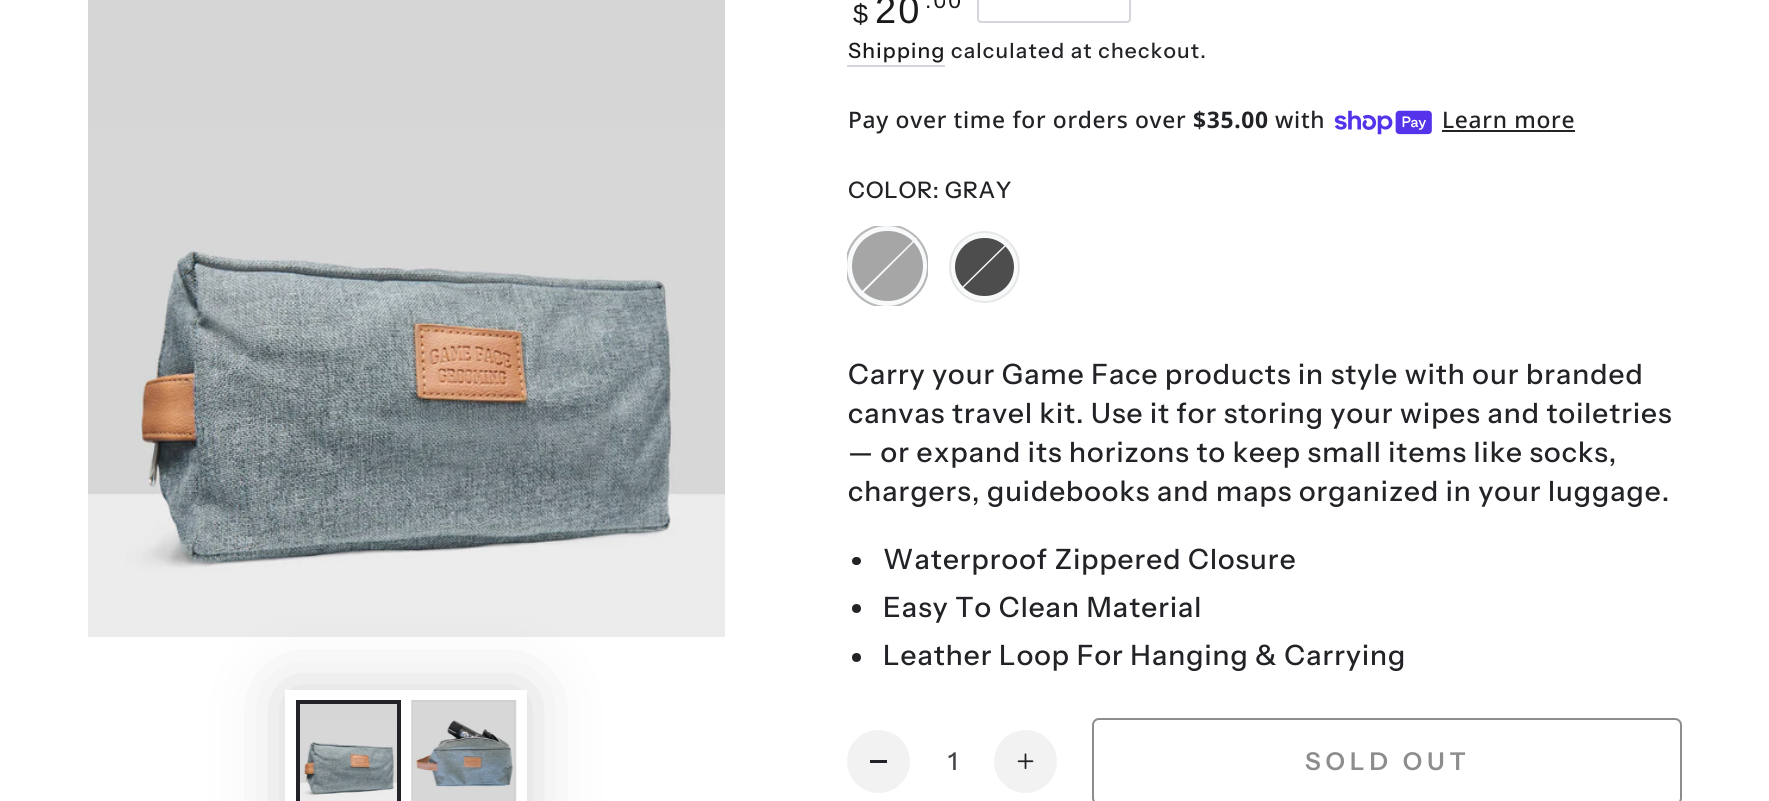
import math
import cairocffi as cairo

surface = cairo.ImageSurface(cairo.FORMAT_RGB24, 1769, 801)
cr = cairo.Context(surface)
options = cairo.FontOptions()
options.set_hint_metrics(cairo.HINT_METRICS_OFF)
options.set_hint_style(cairo.HINT_STYLE_NONE)
cr.set_font_options(options)
cr.set_miter_limit(4)


def use_color(code):
    cr.set_source_rgb(*(v / 255 for v in bytes.fromhex(code[-6:])))


def spaced_text(x, y, s, letter, word):
    cr.move_to(x, y)
    for ch in s:
        cr.show_text(ch)
        cr.rel_move_to(letter + word * (ch == ' '), 0)


def round_rect(x, y, w, h, r):
    cr.new_sub_path()
    for i, (u, v) in enumerate([(x + w - r, y + h - r), (x + r, y + h - r), (x + r, y + r), (x + w - r, y + r)]):
        cr.arc(u, v, r, i * math.pi / 2, (i + 1) * math.pi / 2)
    cr.close_path()


def shadow(x, y, w, h, r, blur, alpha):
    cr.push_group_with_content(cairo.CONTENT_ALPHA)
    cr.set_operator(cairo.OPERATOR_SOURCE)
    for i in range(15, -16, -2):
        e = blur * i / 6
        if min(w, h) + 2 * e > 0:
            cr.set_source_rgba(0, 0, 0, alpha * math.erfc((i - 1) / 8.5) / 2)
            round_rect(x - e, y - e, w + 2 * e, h + 2 * e, max(0, min(r + e + blur * .6, min(w, h) / 2 + e)))
            cr.fill()
    cr.mask(cr.pop_group())


def picture(path, x, y, w, h):
    cr.save()
    cr.set_source_surface(cairo.ImageSurface.create_from_png(path), x, y)
    cr.rectangle(x, y, w, h)
    cr.fill()
    cr.restore()


use_color("#ffffff")
cr.paint()
picture("img1.png", 88, 0, 637, 637)
use_color("#212326")
shadow(285, 690, 242, 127, 0, 35, 0.2)
use_color("#ffffff")
cr.rectangle(285, 690, 242, 111)
cr.fill()
picture("img2.png", 300, 704, 97, 97)
cr.rectangle(298, 702, 101, 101)
use_color("#212326")
cr.set_line_width(4)
cr.stroke()
use_color("#f3f3f3")
cr.rectangle(411, 700, 105, 101)
cr.fill()
picture("img3.png", 411, 700, 106, 101)
cr.rectangle(412, 701, 103, 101)
cr.set_source_rgba(0.129, 0.137, 0.149, 0.04)
cr.set_line_width(2)
cr.stroke()
cr.select_font_face("Liberation Sans")
cr.set_font_size(27)
use_color("#1a1b18")
spaced_text(853, 23, "$", 2, 0)
cr.set_font_size(38)
spaced_text(875, 23, "20", 2, 0)
cr.set_font_size(23)
spaced_text(925, 8, ".00", 2, 0)
round_rect(978, -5, 152, 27, 3)
use_color("#d2d5d9")
cr.stroke()
cr.select_font_face("Instrument Sans Medium")
cr.set_font_size(21)
use_color("#1a1b18")
spaced_text(848, 58, "Shipping", 1.25, 0)
use_color("#d2d5d9")
cr.rectangle(847, 65, 98, 2)
cr.fill()
use_color("#212326")
spaced_text(951, 58, "calculated at checkout.", 1.25, 0)
cr.select_font_face("Noto Sans Medium")
cr.set_font_size(22.75)
spaced_text(848, 128, "Pay over time for orders over", 0.7, 0)
cr.select_font_face("Noto Sans", cairo.FONT_SLANT_NORMAL, cairo.FONT_WEIGHT_BOLD)
spaced_text(1193, 128, "$35.00", 0.7, 0)
cr.select_font_face("Noto Sans Medium")
spaced_text(1275, 128, "with", 0.7, 0)
picture("img4.png", 1334, 110, 98, 25)
spaced_text(1442, 128, "Learn more", 0.7, 0)
cr.rectangle(1442, 130, 133, 2)
cr.fill()
cr.select_font_face("Instrument Sans Medium")
spaced_text(848, 198, "COLOR: GRAY", 0.7, 0)
use_color("#a6a6a6")
round_rect(849.5, 228.5, 76, 75, 37.5)
cr.fill_preserve()
use_color("#f7f9fa")
cr.set_line_width(5)
cr.stroke()
cr.set_source_rgba(0.392, 0.396, 0.404, 0.45)
cr.set_fill_rule(cairo.FILL_RULE_EVEN_ODD)
cr.new_path()
cr.move_to(887, 226)
cr.curve_to(865, 226, 847, 244, 847, 266)
cr.line_to(847, 253)
cr.curve_to(851, 240, 861, 230, 874, 226)
cr.close_path()
cr.move_to(847, 279)
cr.line_to(847, 266)
cr.curve_to(847, 288, 865, 306, 887, 306)
cr.line_to(874, 306)
cr.curve_to(861, 302, 851, 292, 847, 279)
cr.close_path()
cr.move_to(900, 306)
cr.line_to(887, 306)
cr.curve_to(909, 306, 927, 288, 927, 266)
cr.curve_to(927, 244, 909, 226, 887, 226)
cr.line_to(900, 226)
cr.curve_to(914, 231, 925, 242, 928, 257)
cr.line_to(928, 275)
cr.curve_to(925, 290, 914, 301, 900, 306)
cr.close_path()
cr.fill()
use_color("#f7f9fa")
cr.set_fill_rule(cairo.FILL_RULE_WINDING)
cr.new_path()
cr.move_to(860, 296)
cr.line_to(859, 294)
cr.line_to(916, 238)
cr.line_to(917, 239)
cr.close_path()
cr.fill()
use_color("#4d4d4d")
round_rect(952.5, 235.5, 64, 63, 31.5)
cr.fill_preserve()
use_color("#f7f9fa")
cr.stroke()
round_rect(950, 232, 69, 70, 34.5)
cr.set_source_rgba(0.392, 0.396, 0.404, 0.15)
cr.set_line_width(2)
cr.stroke()
use_color("#f7f9fa")
cr.new_path()
cr.move_to(959, 290)
cr.line_to(960, 291)
cr.line_to(1009, 243)
cr.line_to(1008, 242)
cr.close_path()
cr.fill()
cr.set_font_size(28)
use_color("#212326")
spaced_text(848, 384, "Carry your Game Face products in style with our branded", 1.05, 0)
spaced_text(848, 423, "canvas travel kit. Use it for storing your wipes and toiletries", 1.05, 0)
spaced_text(848, 462, "— or expand its horizons to keep small items like socks,", 1.05, 0)
spaced_text(848, 501, "chargers, guidebooks and maps organized in your luggage.", 1.05, 0)
round_rect(852, 557, 9, 8, 4)
cr.fill()
spaced_text(883, 569, "Waterproof Zippered Closure", 1.05, 0)
cr.new_path()
cr.arc(856.5, 608.5, 4.5, 0, 2 * math.pi)
cr.fill()
spaced_text(883, 617, "Easy To Clean Material", 1.05, 0)
cr.new_path()
cr.arc(856.5, 657.5, 4.5, 0, 2 * math.pi)
cr.fill()
spaced_text(883, 665, "Leather Loop For Hanging & Carrying", 1.05, 0)
use_color("#f2f2f2")
cr.new_path()
cr.arc(878.5, 761.5, 31.5, 0, 2 * math.pi)
cr.fill()
use_color("#212326")
cr.rectangle(870, 760, 17, 3)
cr.fill()
cr.set_font_size(24.5)
use_color("#424447")
cr.move_to(948, 770)
cr.show_text("1")
use_color("#f2f2f2")
cr.new_path()
cr.arc(1025.5, 761.5, 31.5, 0, 2 * math.pi)
cr.fill()
picture("img5.png", 1017, 753, 17, 17)
round_rect(1093, 719, 588, 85, 6)
use_color("#8d8d8c")
cr.stroke()
cr.select_font_face("Instrument Sans SemiBold")
spaced_text(1305, 770, "SOLD OUT", 5, 0)
surface.write_to_png("result.png")
